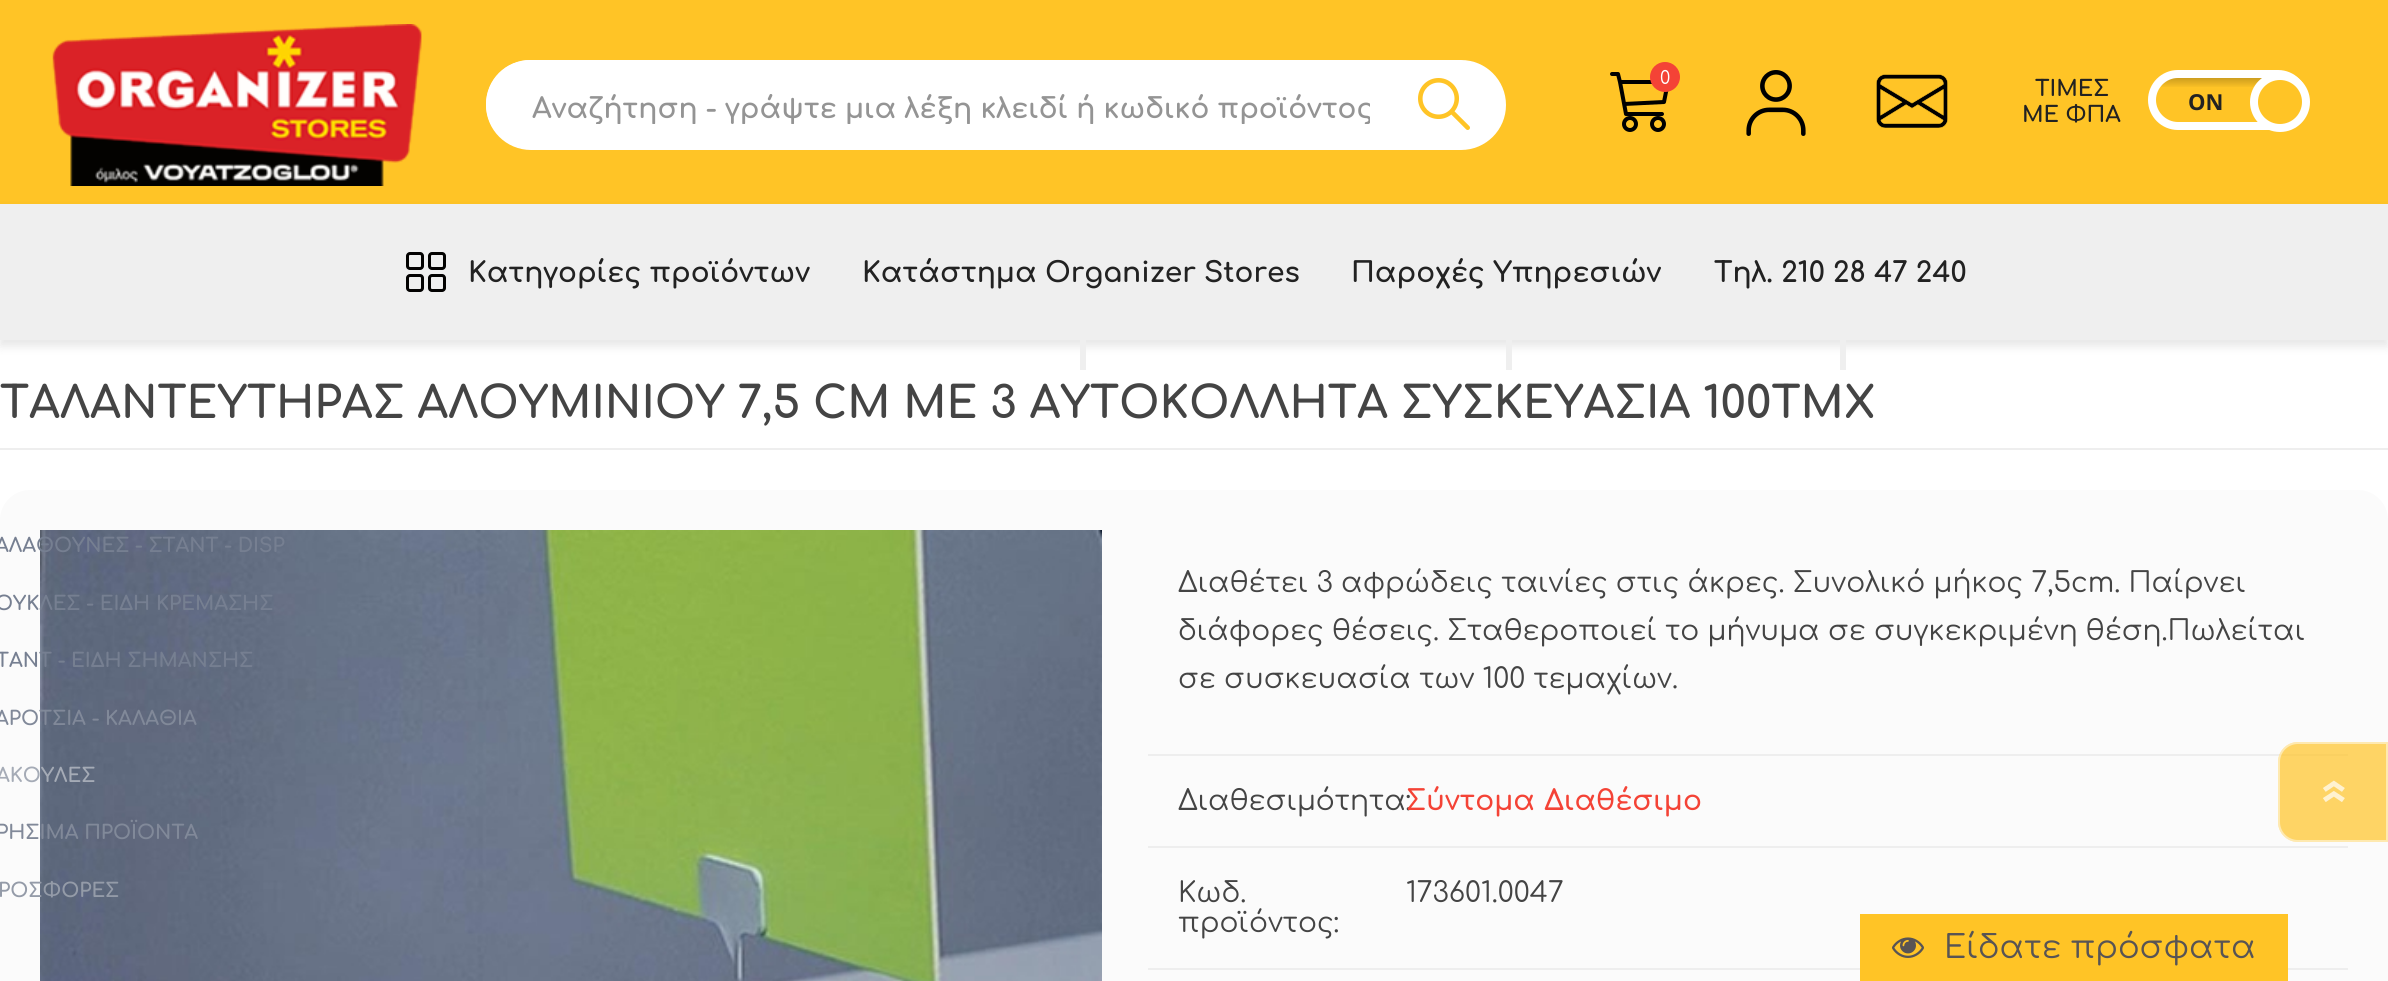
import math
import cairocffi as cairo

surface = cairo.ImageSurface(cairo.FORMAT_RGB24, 2388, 981)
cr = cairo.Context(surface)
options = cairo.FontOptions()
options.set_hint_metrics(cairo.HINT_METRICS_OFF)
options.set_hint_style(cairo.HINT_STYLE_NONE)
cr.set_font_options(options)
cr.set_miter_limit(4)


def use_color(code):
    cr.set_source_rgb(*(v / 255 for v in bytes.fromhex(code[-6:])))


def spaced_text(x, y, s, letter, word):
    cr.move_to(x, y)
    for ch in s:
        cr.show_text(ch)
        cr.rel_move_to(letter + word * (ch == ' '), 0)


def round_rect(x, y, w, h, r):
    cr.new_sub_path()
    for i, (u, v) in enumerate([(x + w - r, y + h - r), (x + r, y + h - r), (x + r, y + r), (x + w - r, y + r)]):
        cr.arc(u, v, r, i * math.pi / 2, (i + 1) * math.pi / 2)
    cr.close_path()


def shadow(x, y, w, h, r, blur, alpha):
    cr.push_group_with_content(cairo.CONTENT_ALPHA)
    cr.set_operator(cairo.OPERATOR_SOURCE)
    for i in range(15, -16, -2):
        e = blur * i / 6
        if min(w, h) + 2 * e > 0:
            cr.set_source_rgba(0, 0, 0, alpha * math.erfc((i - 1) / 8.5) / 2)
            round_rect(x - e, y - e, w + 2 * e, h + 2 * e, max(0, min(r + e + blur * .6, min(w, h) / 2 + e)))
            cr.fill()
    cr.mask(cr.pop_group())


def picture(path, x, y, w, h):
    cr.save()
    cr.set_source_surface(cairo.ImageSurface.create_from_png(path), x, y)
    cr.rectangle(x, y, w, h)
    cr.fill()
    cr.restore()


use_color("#ffffff")
cr.paint()
use_color("#ffc426")
cr.rectangle(0, 0, 2388, 204)
cr.fill()
picture("img1.png", 52, 24, 370, 162)
use_color("#ffffff")
round_rect(486, 60, 1020, 90, 45)
cr.fill()
round_rect(486, 60, 930, 88, 44)
cr.fill()
cr.save()
cr.rectangle(532, 94, 838, 30)
cr.clip()
cr.select_font_face("Comfortaa", cairo.FONT_SLANT_NORMAL, cairo.FONT_WEIGHT_BOLD)
cr.set_font_size(28)
use_color("#949494")
cr.move_to(532, 118)
cr.show_text("Αναζήτηση - γράψτε μια λέξη κλειδί ή κωδικό προϊόντος")
cr.restore()
picture("img2.png", 1418, 78, 52, 52)
picture("img3.png", 1610, 72, 59, 60)
use_color("#f44336")
cr.arc(1665, 77, 15, 0, 2 * math.pi)
cr.fill()
cr.select_font_face("Comfortaa")
cr.set_font_size(18)
use_color("#ffffff")
cr.move_to(1660, 84)
cr.show_text("0")
picture("img4.png", 1746, 70, 60, 66)
picture("img5.png", 1876, 74, 72, 54)
cr.select_font_face("Comfortaa", cairo.FONT_SLANT_NORMAL, cairo.FONT_WEIGHT_BOLD)
cr.set_font_size(22)
use_color("#222222")
cr.move_to(2035, 96)
cr.show_text("ΤΙΜΕΣ")
cr.move_to(2022, 122)
cr.show_text("ME ΦΠΑ")
use_color("#ffffff")
round_rect(2152, 74, 152, 52, 26)
cr.fill_preserve()
cr.set_line_width(8)
cr.stroke()
cr.save()
round_rect(2156, 78, 144, 44, 22)
cr.clip()
use_color("#ffc426")
cr.new_path()
cr.move_to(2178, 78)
cr.line_to(2284, 78)
cr.line_to(2284, 122)
cr.line_to(2178, 122)
cr.curve_to(2166, 122, 2156, 112, 2156, 100)
cr.curve_to(2156, 88, 2166, 78, 2178, 78)
cr.close_path()
cr.fill()
gradient = cairo.LinearGradient(2220, 78, 2220, 88)
gradient.add_color_stop_rgba(0, 0, 0, 0, 0.2)
gradient.add_color_stop_rgba(1, 0, 0, 0, 0)
cr.set_source(gradient)
cr.rectangle(2161, 78, 101, 9)
cr.fill()
cr.restore()
cr.select_font_face("Open Sans", cairo.FONT_SLANT_NORMAL, cairo.FONT_WEIGHT_BOLD)
use_color("#222222")
cr.move_to(2188, 110)
cr.show_text("ON")
use_color("#ffc426")
cr.new_path()
cr.arc(2280, 102, 26, 0, 2 * math.pi)
cr.fill_preserve()
use_color("#ffffff")
cr.stroke()
use_color("#000000")
shadow(0, 210, 2388, 136, 0, 5, 0.1)
use_color("#efefef")
cr.rectangle(0, 204, 2388, 136)
cr.fill()
picture("img6.png", 406, 252, 40, 40)
cr.select_font_face("Comfortaa", cairo.FONT_SLANT_NORMAL, cairo.FONT_WEIGHT_BOLD)
cr.set_font_size(28)
use_color("#222222")
cr.move_to(468, 282)
cr.show_text("Κατηγορίες προϊόντων")
use_color("#fbfbfb")
round_rect(0, 490, 2388, 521, 30)
cr.fill()
picture("img7.png", 40, 530, 1062, 451)
cr.set_font_size(19.6)
use_color("#767f91")
cr.move_to(-5, 552)
cr.show_text("ΑΛΑΘΟΥΝΕΣ - ΣΤΑΝΤ - DISP")
cr.move_to(-5, 610)
cr.show_text("ΟΥΚΛΕΣ - ΕΙΔΗ ΚΡΕΜΑΣΗΣ")
cr.move_to(-4, 667)
cr.show_text("ΤΑΝΤ - ΕΙΔΗ ΣΗΜΑΝΣΗΣ")
use_color("#818999")
cr.move_to(-5, 725)
cr.show_text("ΑΡΟΤΣΙΑ - ΚΑΛΑΘΙΑ")
use_color("#a5abb6")
cr.move_to(-4, 782)
cr.show_text("ΑΚΟΥΛΕΣ")
use_color("#818999")
cr.move_to(-4, 839)
cr.show_text("ΡΗΣΙΜΑ ΠΡΟΪΟΝΤΑ")
use_color("#949ba8")
cr.move_to(-2, 897)
cr.show_text("ΡΟΣΦΟΡΕΣ")
cr.set_font_size(28)
use_color("#222222")
cr.move_to(862, 282)
cr.show_text("Κατάστημα Organizer Stores")
use_color("#efefef")
cr.rectangle(1080, 340, 6, 30)
cr.fill()
use_color("#222222")
cr.move_to(1351, 282)
cr.show_text("Παροχές Υπηρεσιών")
use_color("#efefef")
cr.rectangle(1506, 340, 6, 30)
cr.fill()
use_color("#222222")
cr.move_to(1714, 282)
cr.show_text("Τηλ. 210 28 47 240")
use_color("#efefef")
cr.rectangle(1840, 340, 6, 30)
cr.fill()
use_color("#eeeeee")
cr.rectangle(0, 448, 2388, 2)
cr.fill()
cr.set_font_size(44)
use_color("#444444")
cr.move_to(0, 418)
cr.show_text("ΤΑΛΑΝΤΕΥΤΗΡΑΣ ΑΛΟΥΜΙΝΙΟΥ 7,5 CM ΜΕ 3 ΑΥΤΟΚΟΛΛΗΤΑ ΣΥΣΚΕΥΑΣΙΑ 100ΤΜΧ")
use_color("#eeeeee")
cr.rectangle(1148, 754, 1200, 2)
cr.fill()
cr.select_font_face("Comfortaa")
cr.set_font_size(28)
use_color("#444444")
cr.move_to(1178, 592)
cr.show_text("Διαθέτει 3 αφρώδεις ταινίες στις άκρες. Συνολικό μήκος 7,5cm. Παίρνει")
cr.move_to(1178, 640)
cr.show_text("διάφορες θέσεις. Σταθεροποιεί το μήνυμα σε συγκεκριμένη θέση.Πωλείται")
cr.move_to(1178, 688)
cr.show_text("σε συσκευασία των 100 τεμαχίων.")
use_color("#eeeeee")
cr.rectangle(1148, 846, 1200, 2)
cr.fill()
use_color("#444444")
cr.move_to(1178, 810)
cr.show_text("Διαθεσιμότητα:")
cr.select_font_face("Comfortaa SemiBold")
use_color("#f44336")
spaced_text(1406, 810, "Σύντομα Διαθέσιμο", 0, 1)
use_color("#eeeeee")
cr.rectangle(1148, 968, 1200, 2)
cr.fill()
cr.select_font_face("Comfortaa")
use_color("#444444")
cr.move_to(1178, 902)
cr.show_text("Κωδ.")
cr.move_to(1178, 932)
cr.show_text("προϊόντος:")
cr.move_to(1406, 902)
cr.show_text("173601.0047")
use_color("#ffc426")
cr.rectangle(1860, 914, 428, 67)
cr.fill()
picture("img8.png", 1892, 937, 32, 21)
cr.set_font_size(32)
use_color("#585454")
cr.move_to(1944, 958)
cr.show_text("Είδατε πρόσφατα")
cr.set_source_rgba(1, 0.769, 0.149, 0.7)
cr.new_path()
cr.move_to(2298, 742)
cr.line_to(2388, 742)
cr.line_to(2388, 842)
cr.line_to(2298, 842)
cr.curve_to(2287, 842, 2278, 833, 2278, 822)
cr.line_to(2278, 762)
cr.curve_to(2278, 751, 2287, 742, 2298, 742)
cr.close_path()
cr.fill()
cr.new_path()
cr.move_to(2298, 743)
cr.line_to(2387, 743)
cr.line_to(2387, 841)
cr.line_to(2298, 841)
cr.curve_to(2287.5, 841, 2279, 832.5, 2279, 822)
cr.line_to(2279, 762)
cr.curve_to(2279, 751.5, 2287.5, 743, 2298, 743)
cr.close_path()
cr.set_source_rgba(1, 1, 1, 0.49)
cr.set_line_width(2)
cr.stroke()
picture("img9.png", 2323, 780, 22, 22)
surface.write_to_png("result.png")
